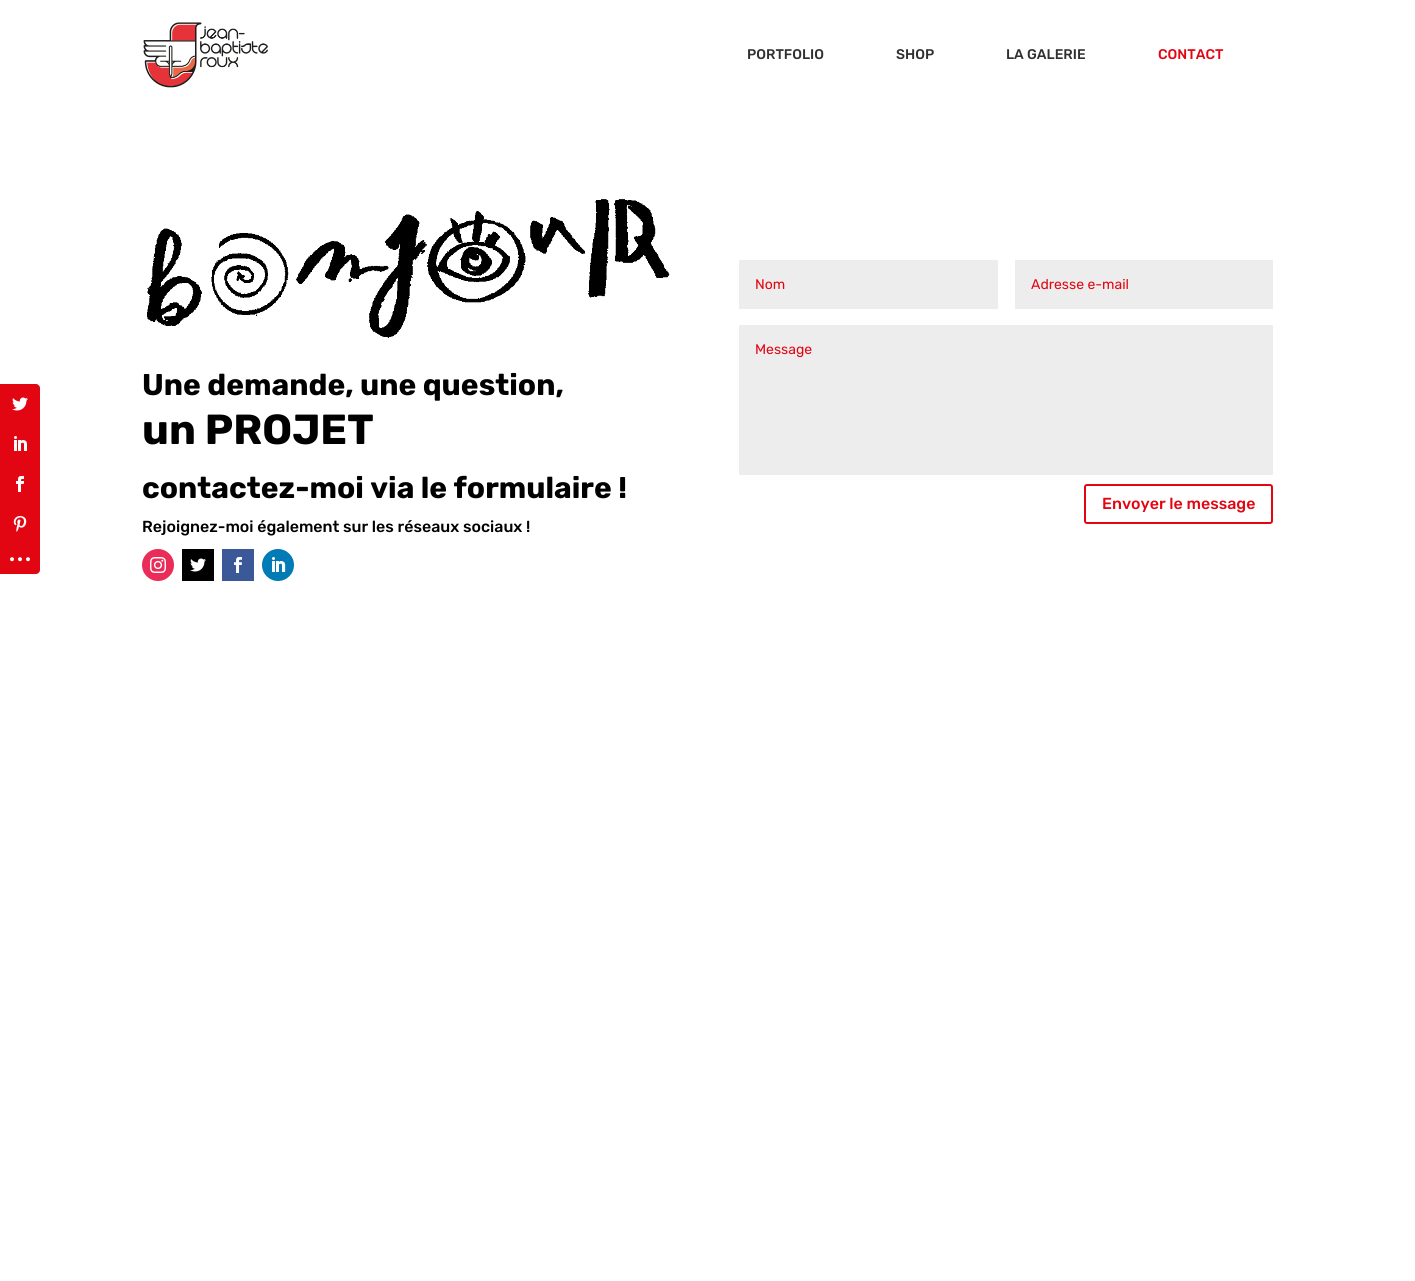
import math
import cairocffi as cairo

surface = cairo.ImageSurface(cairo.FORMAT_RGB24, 1415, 1281)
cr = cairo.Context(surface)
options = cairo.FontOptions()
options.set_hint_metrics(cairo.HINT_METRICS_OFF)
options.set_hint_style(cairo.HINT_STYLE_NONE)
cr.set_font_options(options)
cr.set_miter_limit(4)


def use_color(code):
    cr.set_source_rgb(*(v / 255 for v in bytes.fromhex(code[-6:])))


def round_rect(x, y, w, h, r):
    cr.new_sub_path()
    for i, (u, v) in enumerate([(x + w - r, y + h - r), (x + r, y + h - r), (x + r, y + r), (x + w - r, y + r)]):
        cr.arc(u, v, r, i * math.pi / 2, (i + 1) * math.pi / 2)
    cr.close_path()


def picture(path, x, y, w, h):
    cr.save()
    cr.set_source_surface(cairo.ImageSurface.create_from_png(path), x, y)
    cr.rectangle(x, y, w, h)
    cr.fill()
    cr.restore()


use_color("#ffffff")
cr.paint()
use_color("#e20613")
cr.new_path()
cr.move_to(0, 384)
cr.line_to(36, 384)
cr.curve_to(38, 384, 40, 386, 40, 388)
cr.line_to(40, 424)
cr.line_to(0, 424)
cr.close_path()
cr.fill()
picture("img1.png", 12, 397, 16, 14)
cr.rectangle(0, 424, 40, 120)
cr.fill()
picture("img2.png", 14, 436, 13, 15)
picture("img3.png", 16, 476, 8, 16)
picture("img4.png", 13, 516, 14, 16)
cr.new_path()
cr.move_to(0, 544)
cr.line_to(40, 544)
cr.line_to(40, 570)
cr.curve_to(40, 572, 38, 574, 36, 574)
cr.line_to(0, 574)
cr.close_path()
cr.fill()
picture("img5.png", 10, 557, 20, 5)
picture("img6.png", 143, 22, 125, 66)
cr.select_font_face("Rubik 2 Light")
cr.set_font_size(14)
use_color("#303030")
cr.move_to(747, 59)
cr.show_text("PORTFOLIO")
cr.move_to(896, 59)
cr.show_text("SHOP")
cr.move_to(1006, 59)
cr.show_text("LA GALERIE")
use_color("#e20613")
cr.move_to(1158, 59)
cr.show_text("CONTACT")
picture("img7.png", 147, 199, 523, 139)
cr.select_font_face("Rubik Light")
cr.set_font_size(30)
use_color("#000000")
cr.move_to(142, 395)
cr.show_text("Une demande, une question,")
cr.set_font_size(42)
cr.move_to(142, 444)
cr.show_text("un PROJET")
cr.set_font_size(30)
cr.move_to(142, 498)
cr.show_text("contactez-moi via le formulaire !")
cr.select_font_face("Rubik 2 Light")
cr.set_font_size(16)
cr.move_to(142, 532)
cr.show_text("Rejoignez-moi également sur les réseaux sociaux !")
use_color("#ea2c59")
cr.new_path()
cr.arc(158, 565, 16, 0, 2 * math.pi)
cr.fill()
picture("img8.png", 150, 557, 16, 16)
use_color("#000000")
cr.rectangle(182, 549, 32, 32)
cr.fill()
picture("img9.png", 190, 558, 16, 14)
use_color("#3b5998")
cr.rectangle(222, 549, 32, 32)
cr.fill()
picture("img10.png", 234, 557, 8, 16)
use_color("#007bb6")
cr.arc(278, 565, 16, 0, 2 * math.pi)
cr.fill()
picture("img11.png", 272, 557, 14, 15)
use_color("#ededed")
cr.rectangle(739, 260, 259, 49)
cr.fill()
cr.select_font_face("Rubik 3 Light")
cr.set_font_size(14)
use_color("#e20613")
cr.move_to(755, 289)
cr.show_text("Nom")
use_color("#ededed")
cr.rectangle(1015, 260, 258, 49)
cr.fill()
use_color("#e20613")
cr.move_to(1031, 289)
cr.show_text("Adresse e-mail")
use_color("#ededed")
cr.rectangle(739, 325, 534, 150)
cr.fill()
use_color("#e20613")
cr.move_to(755, 354)
cr.show_text("Message")
round_rect(1085, 485, 187, 38, 2)
cr.stroke()
cr.select_font_face("Rubik 2 Light")
cr.set_font_size(16)
cr.move_to(1102, 509)
cr.show_text("Envoyer le message")
surface.write_to_png("result.png")
